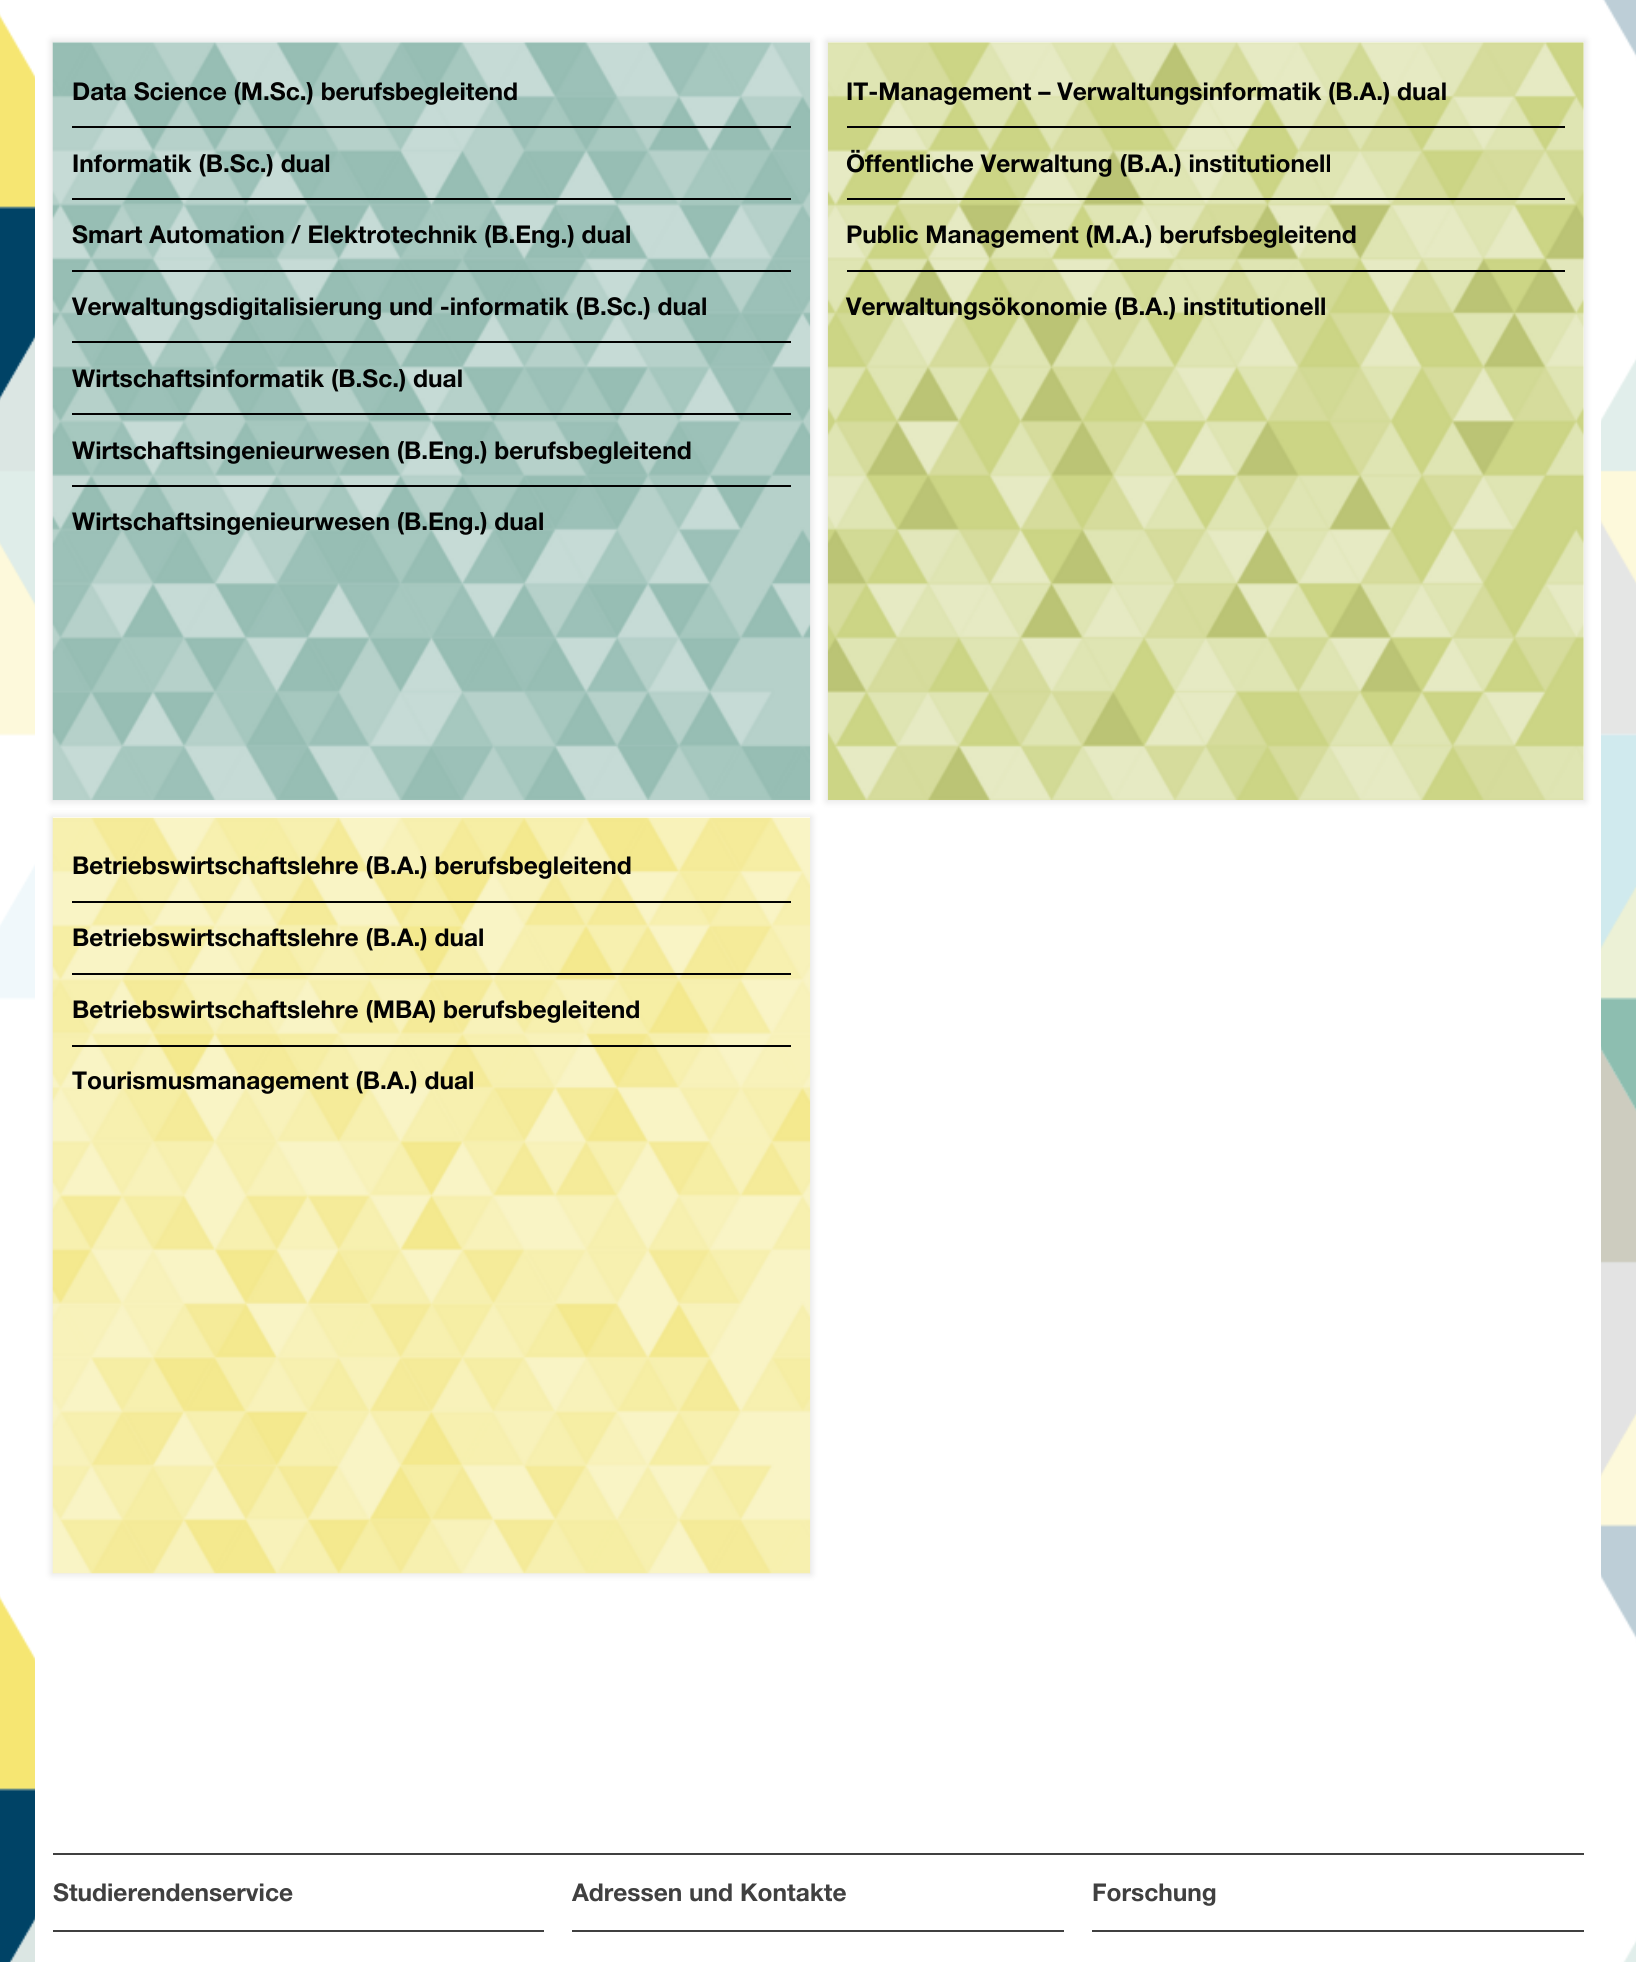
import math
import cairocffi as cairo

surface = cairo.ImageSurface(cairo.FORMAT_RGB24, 1636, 1962)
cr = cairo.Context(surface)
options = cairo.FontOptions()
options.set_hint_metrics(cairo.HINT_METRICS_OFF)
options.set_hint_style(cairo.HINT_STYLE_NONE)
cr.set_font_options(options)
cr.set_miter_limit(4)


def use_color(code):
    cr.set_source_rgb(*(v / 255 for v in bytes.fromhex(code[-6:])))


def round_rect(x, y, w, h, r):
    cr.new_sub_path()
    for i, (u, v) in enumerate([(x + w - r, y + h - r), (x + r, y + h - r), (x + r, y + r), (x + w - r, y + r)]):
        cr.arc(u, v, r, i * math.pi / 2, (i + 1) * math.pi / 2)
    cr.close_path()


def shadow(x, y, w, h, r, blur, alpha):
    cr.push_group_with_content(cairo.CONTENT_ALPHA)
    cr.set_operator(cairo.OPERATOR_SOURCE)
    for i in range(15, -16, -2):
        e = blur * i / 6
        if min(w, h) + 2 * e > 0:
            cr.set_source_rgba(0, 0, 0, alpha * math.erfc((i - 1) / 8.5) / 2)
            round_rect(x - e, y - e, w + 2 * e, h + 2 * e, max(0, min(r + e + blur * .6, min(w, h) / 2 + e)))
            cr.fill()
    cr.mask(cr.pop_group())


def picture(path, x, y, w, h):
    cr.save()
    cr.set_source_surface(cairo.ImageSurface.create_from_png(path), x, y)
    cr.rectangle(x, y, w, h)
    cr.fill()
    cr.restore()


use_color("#ffffff")
cr.paint()
picture("img1.png", 0, 0, 1636, 1962)
use_color("#ffffff")
cr.rectangle(35, 0, 1566, 1962)
cr.fill()
use_color("#000000")
shadow(51, 40, 761, 762, 0, 3.5, 0.1)
use_color("#ffffff")
cr.rectangle(53, 42, 757, 1)
cr.fill()
picture("img2.png", 52, 42, 759, 758)
cr.select_font_face("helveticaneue", cairo.FONT_SLANT_NORMAL, cairo.FONT_WEIGHT_BOLD)
cr.set_font_size(24.5)
use_color("#020202")
cr.move_to(72, 100)
cr.show_text("Data Science (M.Sc.) berufsbegleitend")
cr.rectangle(72, 126, 719, 2)
cr.fill()
cr.move_to(72, 172)
cr.show_text("Informatik (B.Sc.) dual")
cr.rectangle(72, 198, 719, 2)
cr.fill()
cr.move_to(72, 243)
cr.show_text("Smart Automation / Elektrotechnik (B.Eng.) dual")
cr.rectangle(72, 270, 719, 2)
cr.fill()
cr.move_to(72, 315)
cr.show_text("Verwaltungsdigitalisierung und -informatik (B.Sc.) dual")
cr.rectangle(72, 341, 719, 2)
cr.fill()
cr.move_to(72, 387)
cr.show_text("Wirtschaftsinformatik (B.Sc.) dual")
cr.rectangle(72, 413, 719, 2)
cr.fill()
cr.move_to(72, 459)
cr.show_text("Wirtschaftsingenieurwesen (B.Eng.) berufsbegleitend")
cr.rectangle(72, 485, 719, 2)
cr.fill()
cr.move_to(72, 530)
cr.show_text("Wirtschaftsingenieurwesen (B.Eng.) dual")
use_color("#000000")
shadow(826, 40, 760, 762, 0, 3.5, 0.1)
use_color("#ffffff")
cr.rectangle(828, 42, 756, 758)
cr.fill()
picture("img3.png", 827, 42, 757, 758)
use_color("#020202")
cr.move_to(846, 100)
cr.show_text("IT-Management – Verwaltungsinformatik (B.A.) dual")
cr.rectangle(847, 126, 718, 2)
cr.fill()
cr.move_to(846, 172)
cr.show_text("Öffentliche Verwaltung (B.A.) institutionell")
cr.rectangle(847, 198, 718, 2)
cr.fill()
cr.move_to(846, 243)
cr.show_text("Public Management (M.A.) berufsbegleitend")
cr.rectangle(847, 270, 718, 2)
cr.fill()
cr.move_to(846, 315)
cr.show_text("Verwaltungsökonomie (B.A.) institutionell")
use_color("#000000")
shadow(51, 816, 761, 759, 0, 3.5, 0.1)
use_color("#ffffff")
cr.rectangle(53, 817, 757, 1)
cr.fill()
picture("img4.png", 52, 817, 759, 757)
use_color("#020202")
cr.move_to(72, 874)
cr.show_text("Betriebswirtschaftslehre (B.A.) berufsbegleitend")
cr.rectangle(72, 901, 719, 2)
cr.fill()
cr.move_to(72, 946)
cr.show_text("Betriebswirtschaftslehre (B.A.) dual")
cr.rectangle(72, 973, 719, 2)
cr.fill()
cr.move_to(72, 1018)
cr.show_text("Betriebswirtschaftslehre (MBA) berufsbegleitend")
cr.rectangle(72, 1045, 719, 2)
cr.fill()
cr.move_to(72, 1089)
cr.show_text("Tourismusmanagement (B.A.) dual")
use_color("#404040")
cr.rectangle(53, 1853, 1531, 2)
cr.fill()
cr.rectangle(53, 1930, 491, 2)
cr.fill()
cr.move_to(53, 1901)
cr.show_text("Studierendenservice")
cr.rectangle(572, 1930, 492, 2)
cr.fill()
cr.move_to(572, 1901)
cr.show_text("Adressen und Kontakte")
cr.rectangle(1092, 1930, 492, 2)
cr.fill()
cr.move_to(1092, 1901)
cr.show_text("Forschung")
surface.write_to_png("result.png")
